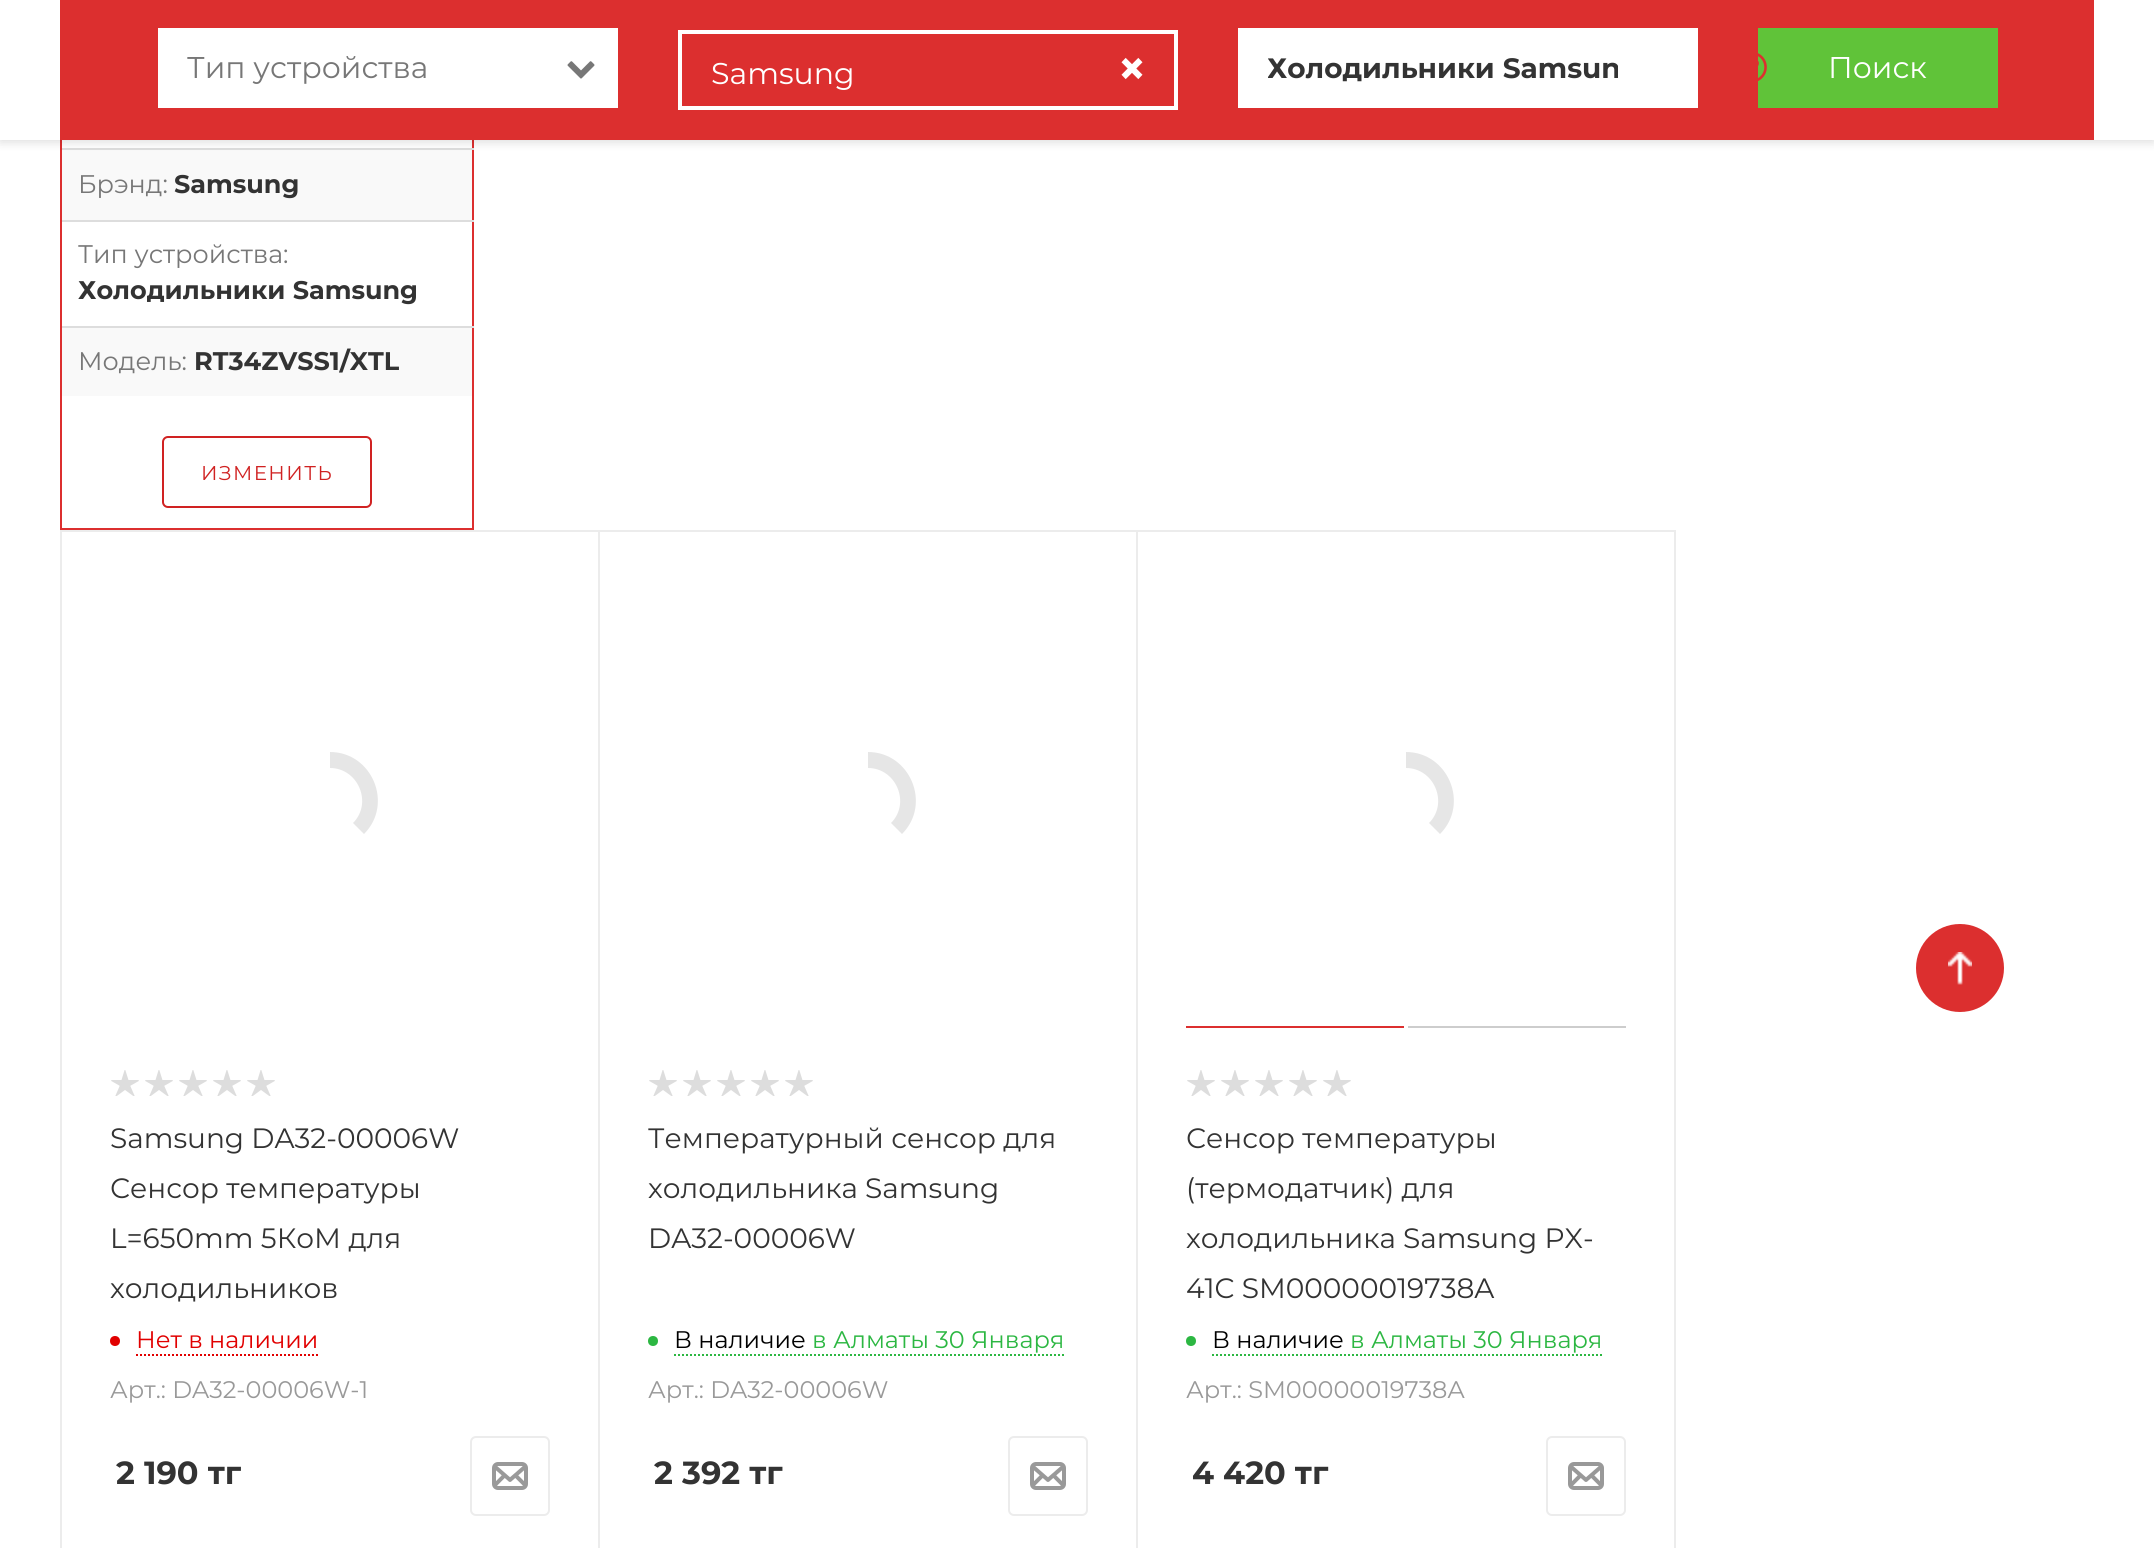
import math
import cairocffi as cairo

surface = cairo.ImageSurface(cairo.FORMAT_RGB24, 2154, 1548)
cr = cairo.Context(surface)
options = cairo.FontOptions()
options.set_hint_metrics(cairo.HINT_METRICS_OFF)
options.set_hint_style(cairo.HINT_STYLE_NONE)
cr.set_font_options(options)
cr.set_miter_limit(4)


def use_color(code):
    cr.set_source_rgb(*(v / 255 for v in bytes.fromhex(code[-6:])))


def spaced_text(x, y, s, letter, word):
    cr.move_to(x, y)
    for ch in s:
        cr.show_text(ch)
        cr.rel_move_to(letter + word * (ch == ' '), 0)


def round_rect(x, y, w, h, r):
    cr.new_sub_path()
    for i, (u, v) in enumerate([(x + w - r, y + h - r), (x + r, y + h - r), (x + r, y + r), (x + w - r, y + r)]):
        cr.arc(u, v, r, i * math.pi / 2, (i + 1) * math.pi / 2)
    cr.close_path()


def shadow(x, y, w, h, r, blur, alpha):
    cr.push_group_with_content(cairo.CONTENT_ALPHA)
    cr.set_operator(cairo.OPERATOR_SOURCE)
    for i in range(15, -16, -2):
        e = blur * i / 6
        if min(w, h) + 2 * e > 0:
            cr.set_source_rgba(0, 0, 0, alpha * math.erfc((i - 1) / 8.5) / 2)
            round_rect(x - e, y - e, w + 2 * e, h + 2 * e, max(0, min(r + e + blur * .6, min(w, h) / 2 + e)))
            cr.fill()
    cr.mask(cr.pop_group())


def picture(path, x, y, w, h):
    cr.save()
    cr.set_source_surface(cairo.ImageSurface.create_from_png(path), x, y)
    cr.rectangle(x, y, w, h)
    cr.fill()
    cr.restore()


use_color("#ffffff")
cr.paint()
cr.rectangle(61, 67, 412, 462)
use_color("#dc2f2f")
cr.stroke()
use_color("#f9f9f9")
cr.rectangle(62, 150, 410, 70)
cr.fill()
use_color("#dddddd")
cr.rectangle(62, 148, 412, 2)
cr.fill()
use_color("#000000")
shadow(0, 2, 2154, 140, 0, 5, 0.14)
use_color("#ffffff")
cr.rectangle(0, 0, 2154, 140)
cr.fill()
use_color("#dc2f2f")
cr.rectangle(60, 0, 2034, 140)
cr.fill()
use_color("#ffffff")
cr.rectangle(158, 28, 460, 80)
cr.fill()
cr.select_font_face("Montserrat")
cr.set_font_size(30)
use_color("#777777")
cr.move_to(187, 78)
cr.show_text("Тип устройства")
picture("img1.png", 567, 61, 28, 18)
cr.rectangle(680, 32, 496, 76)
use_color("#ffffff")
cr.set_line_width(4)
cr.stroke()
cr.move_to(711, 84)
cr.show_text("Samsung")
cr.select_font_face("Montserrat", cairo.FONT_SLANT_NORMAL, cairo.FONT_WEIGHT_BOLD)
cr.set_font_size(50)
cr.move_to(1117, 86)
cr.show_text("×")
cr.rectangle(1238, 28, 460, 80)
cr.fill()
cr.save()
cr.rectangle(1268, 28, 350, 80)
cr.clip()
cr.set_font_size(28)
use_color("#333333")
cr.move_to(1267, 78)
cr.show_text("Холодильники Samsun")
cr.restore()
use_color("#60c339")
cr.rectangle(1758, 28, 240, 80)
cr.fill()
picture("img2.png", 1758, 53, 9, 28)
cr.select_font_face("Montserrat")
cr.set_font_size(30)
use_color("#ffffff")
cr.move_to(1828, 78)
cr.show_text("Поиск")
cr.set_font_size(25.5)
use_color("#777777")
cr.move_to(78, 193)
cr.show_text("Брэнд:")
cr.select_font_face("Montserrat", cairo.FONT_SLANT_NORMAL, cairo.FONT_WEIGHT_BOLD)
use_color("#333333")
cr.move_to(174, 193)
cr.show_text("Samsung")
use_color("#dddddd")
cr.rectangle(62, 220, 412, 2)
cr.fill()
cr.select_font_face("Montserrat")
use_color("#777777")
cr.move_to(78, 263)
cr.show_text("Тип устройства:")
cr.select_font_face("Montserrat", cairo.FONT_SLANT_NORMAL, cairo.FONT_WEIGHT_BOLD)
use_color("#333333")
cr.move_to(78, 299)
cr.show_text("Холодильники Samsung")
use_color("#f9f9f9")
cr.rectangle(62, 328, 410, 68)
cr.fill()
use_color("#dddddd")
cr.rectangle(62, 326, 412, 2)
cr.fill()
cr.select_font_face("Montserrat")
use_color("#777777")
cr.move_to(78, 370)
cr.show_text("Модель:")
cr.select_font_face("Montserrat", cairo.FONT_SLANT_NORMAL, cairo.FONT_WEIGHT_BOLD)
use_color("#333333")
cr.move_to(194, 370)
cr.show_text("RT34ZVSS1/XTL")
round_rect(163, 437, 208, 70, 5)
use_color("#d02222")
cr.set_line_width(2)
cr.stroke()
cr.select_font_face("Montserrat")
cr.set_font_size(20)
spaced_text(201, 480, "ИЗМЕНИТЬ", 1.5, 0)
cr.rectangle(61, 531, 538, 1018)
use_color("#ececec")
cr.stroke()
use_color("#e6e6e6")
cr.new_path()
cr.move_to(330, 752)
cr.curve_to(372, 752, 394, 804, 364, 834)
cr.line_to(353, 823)
cr.curve_to(373, 803, 358, 768, 330, 768)
cr.close_path()
cr.fill()
picture("img3.png", 111, 1070, 28, 26)
picture("img3.png", 145, 1070, 28, 26)
picture("img3.png", 179, 1070, 28, 26)
picture("img3.png", 213, 1070, 28, 26)
picture("img3.png", 247, 1070, 28, 26)
cr.set_font_size(28)
use_color("#333333")
cr.move_to(110, 1148)
cr.show_text("Samsung DA32-00006W")
cr.move_to(110, 1198)
cr.show_text("Сенсор температуры")
cr.move_to(110, 1248)
cr.show_text("L=650mm 5КоМ для")
cr.move_to(110, 1298)
cr.show_text("холодильников")
use_color("#e10000")
cr.new_path()
cr.arc(115, 1341, 5, 0, 2 * math.pi)
cr.fill()
cr.new_path()
cr.move_to(136, 1355)
cr.line_to(318, 1355)
cr.set_dash([2, 2])
cr.stroke()
cr.set_font_size(24)
cr.move_to(136, 1348)
cr.show_text("Нет в наличии")
use_color("#999999")
cr.move_to(110, 1398)
cr.show_text("Арт.: DA32-00006W-1")
cr.select_font_face("Montserrat", cairo.FONT_SLANT_NORMAL, cairo.FONT_WEIGHT_BOLD)
cr.set_font_size(32)
use_color("#333333")
cr.move_to(116, 1484)
cr.show_text("2 190 тг")
round_rect(471, 1437, 78, 78, 5)
use_color("#ececec")
cr.set_dash([])
cr.stroke()
picture("img4.png", 492, 1462, 36, 28)
cr.rectangle(599, 531, 538, 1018)
cr.stroke()
use_color("#e6e6e6")
cr.new_path()
cr.move_to(868, 752)
cr.curve_to(910, 752, 932, 804, 902, 834)
cr.line_to(891, 823)
cr.curve_to(911, 803, 896, 768, 868, 768)
cr.close_path()
cr.fill()
picture("img3.png", 649, 1070, 28, 26)
picture("img3.png", 683, 1070, 28, 26)
picture("img3.png", 717, 1070, 28, 26)
picture("img3.png", 751, 1070, 28, 26)
picture("img3.png", 785, 1070, 28, 26)
cr.select_font_face("Montserrat")
cr.set_font_size(28)
use_color("#333333")
cr.move_to(648, 1148)
cr.show_text("Температурный сенсор для")
cr.move_to(648, 1198)
cr.show_text("холодильника Samsung")
cr.move_to(648, 1248)
cr.show_text("DA32-00006W")
use_color("#2cb742")
cr.new_path()
cr.arc(653, 1341, 5, 0, 2 * math.pi)
cr.fill()
cr.new_path()
cr.move_to(674, 1355)
cr.line_to(1064, 1355)
cr.set_dash([2, 2])
cr.stroke()
cr.set_font_size(24)
use_color("#000000")
cr.move_to(674, 1348)
cr.show_text("В наличие")
use_color("#2cb742")
cr.move_to(812, 1348)
cr.show_text("в Алматы 30 Января")
use_color("#999999")
cr.move_to(648, 1398)
cr.show_text("Арт.: DA32-00006W")
cr.select_font_face("Montserrat", cairo.FONT_SLANT_NORMAL, cairo.FONT_WEIGHT_BOLD)
cr.set_font_size(32)
use_color("#333333")
cr.move_to(654, 1484)
cr.show_text("2 392 тг")
round_rect(1009, 1437, 78, 78, 5)
use_color("#ececec")
cr.set_dash([])
cr.stroke()
picture("img4.png", 1030, 1462, 36, 28)
cr.rectangle(1137, 531, 538, 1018)
cr.stroke()
use_color("#e6e6e6")
cr.new_path()
cr.move_to(1406, 752)
cr.curve_to(1448, 752, 1470, 804, 1440, 834)
cr.line_to(1429, 823)
cr.curve_to(1449, 803, 1434, 768, 1406, 768)
cr.close_path()
cr.fill()
use_color("#dc2f2f")
cr.rectangle(1186, 1026, 218, 2)
cr.fill()
use_color("#cdcdcd")
cr.rectangle(1408, 1026, 218, 2)
cr.fill()
picture("img3.png", 1187, 1070, 28, 26)
picture("img3.png", 1221, 1070, 28, 26)
picture("img3.png", 1255, 1070, 28, 26)
picture("img3.png", 1289, 1070, 28, 26)
picture("img3.png", 1323, 1070, 28, 26)
cr.select_font_face("Montserrat")
cr.set_font_size(28)
use_color("#333333")
cr.move_to(1186, 1148)
cr.show_text("Сенсор температуры")
cr.move_to(1186, 1198)
cr.show_text("(термодатчик) для")
cr.move_to(1186, 1248)
cr.show_text("холодильника Samsung PX-")
cr.move_to(1186, 1298)
cr.show_text("41C SM00000019738A")
use_color("#2cb742")
cr.new_path()
cr.arc(1191, 1341, 5, 0, 2 * math.pi)
cr.fill()
cr.new_path()
cr.move_to(1212, 1355)
cr.line_to(1602, 1355)
cr.set_dash([2, 2])
cr.stroke()
cr.set_font_size(24)
use_color("#000000")
cr.move_to(1212, 1348)
cr.show_text("В наличие")
use_color("#2cb742")
cr.move_to(1350, 1348)
cr.show_text("в Алматы 30 Января")
use_color("#999999")
cr.move_to(1186, 1398)
cr.show_text("Арт.: SM00000019738A")
cr.select_font_face("Montserrat", cairo.FONT_SLANT_NORMAL, cairo.FONT_WEIGHT_BOLD)
cr.set_font_size(32)
use_color("#333333")
cr.move_to(1192, 1484)
cr.show_text("4 420 тг")
round_rect(1547, 1437, 78, 78, 5)
use_color("#ececec")
cr.set_dash([])
cr.stroke()
picture("img4.png", 1568, 1462, 36, 28)
use_color("#dc2f2f")
cr.arc(1960, 968, 44, 0, 2 * math.pi)
cr.fill()
picture("img5.png", 1948, 952, 24, 33)
surface.write_to_png("result.png")
